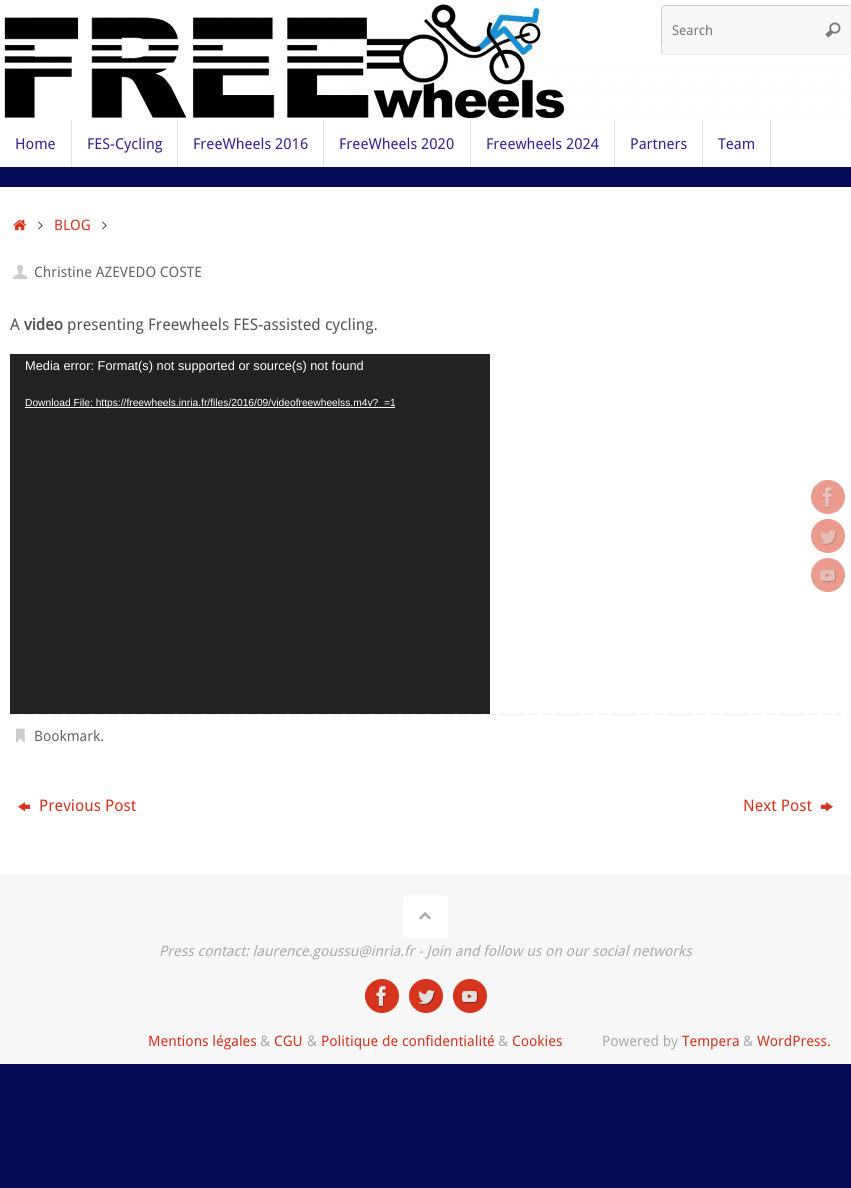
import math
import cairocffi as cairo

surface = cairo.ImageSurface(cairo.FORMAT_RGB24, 851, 1188)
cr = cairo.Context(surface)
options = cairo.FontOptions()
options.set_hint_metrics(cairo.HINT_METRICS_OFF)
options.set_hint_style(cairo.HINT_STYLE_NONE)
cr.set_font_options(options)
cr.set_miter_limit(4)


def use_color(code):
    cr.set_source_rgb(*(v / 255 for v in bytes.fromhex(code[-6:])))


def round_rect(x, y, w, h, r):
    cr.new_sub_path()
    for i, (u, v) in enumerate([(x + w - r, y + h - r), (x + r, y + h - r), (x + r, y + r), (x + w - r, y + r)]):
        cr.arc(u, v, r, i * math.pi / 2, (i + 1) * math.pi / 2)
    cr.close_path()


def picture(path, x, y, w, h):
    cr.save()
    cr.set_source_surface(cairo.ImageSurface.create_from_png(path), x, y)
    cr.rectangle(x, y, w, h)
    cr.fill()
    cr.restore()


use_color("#060a56")
cr.paint()
picture("img1.png", 0, 0, 851, 120)
use_color("#f7f7f7")
round_rect(661, 5, 190, 50, 4)
cr.fill()
cr.new_path()
cr.move_to(849.5, 6.5)
cr.curve_to(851.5, 8.5, 850.5, 14.5, 850.5, 16)
cr.line_to(850.5, 44)
cr.curve_to(850.5, 46.5, 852, 54.5, 847, 54.5)
cr.line_to(664, 54.5)
cr.line_to(662.5, 53.5)
use_color("#eeeeee")
cr.set_line_width(1)
cr.stroke()
cr.save()
cr.rectangle(661, 5, 190, 50)
cr.clip()
cr.new_path()
cr.move_to(662.5, 53.5)
cr.curve_to(660.5, 51.5, 661.5, 45.5, 661.5, 44)
cr.line_to(661.5, 16)
cr.curve_to(661.5, 13.5, 660, 5.5, 665, 5.5)
cr.line_to(848, 5.5)
cr.line_to(849.5, 6.5)
use_color("#cccccc")
cr.stroke()
cr.restore()
cr.select_font_face("Droid Sans")
cr.set_font_size(13.5)
use_color("#757575")
cr.move_to(672, 35)
cr.show_text("Search")
picture("img2.png", 825, 22, 16, 16)
use_color("#ffffff")
cr.rectangle(0, 120, 851, 47)
cr.fill()
use_color("#e1e1e1")
cr.rectangle(71, 120, 1, 47)
cr.fill()
cr.set_font_size(15)
use_color("#382093")
cr.move_to(15, 149)
cr.show_text("Home")
use_color("#e1e1e1")
cr.rectangle(177, 120, 1, 47)
cr.fill()
use_color("#382093")
cr.move_to(87, 149)
cr.show_text("FES-Cycling")
use_color("#e1e1e1")
cr.rectangle(323, 120, 1, 47)
cr.fill()
use_color("#382093")
cr.move_to(193, 149)
cr.show_text("FreeWheels 2016")
use_color("#e1e1e1")
cr.rectangle(470, 120, 1, 47)
cr.fill()
use_color("#382093")
cr.move_to(339, 149)
cr.show_text("FreeWheels 2020")
use_color("#e1e1e1")
cr.rectangle(614, 120, 1, 47)
cr.fill()
use_color("#382093")
cr.move_to(486, 149)
cr.show_text("Freewheels 2024")
use_color("#e1e1e1")
cr.rectangle(702, 120, 1, 47)
cr.fill()
use_color("#382093")
cr.move_to(630, 149)
cr.show_text("Partners")
use_color("#e1e1e1")
cr.rectangle(770, 120, 1, 47)
cr.fill()
use_color("#382093")
cr.move_to(718, 149)
cr.show_text("Team")
use_color("#ffffff")
cr.rectangle(0, 187, 851, 688)
cr.fill()
picture("img3.png", 13, 219, 14, 12)
picture("img4.png", 38, 221, 5, 9)
cr.set_font_size(14.4)
use_color("#d6341d")
cr.move_to(54, 230)
cr.show_text("BLOG")
picture("img4.png", 102, 221, 5, 9)
picture("img5.png", 13, 264, 15, 16)
use_color("#666666")
cr.move_to(34, 277)
cr.show_text("Christine AZEVEDO COSTE")
cr.set_font_size(16)
use_color("#555555")
cr.move_to(10, 330)
cr.show_text("A")
cr.select_font_face("Droid Sans", cairo.FONT_SLANT_NORMAL, cairo.FONT_WEIGHT_BOLD)
cr.move_to(24, 330)
cr.show_text("video")
cr.select_font_face("Droid Sans")
cr.move_to(67, 330)
cr.show_text("presenting Freewheels FES-assisted cycling.")
use_color("#222222")
cr.rectangle(10, 354, 480, 360)
cr.fill()
cr.select_font_face("Liberation Sans")
cr.set_font_size(12.8)
use_color("#ffffff")
cr.move_to(25, 370)
cr.show_text("Media error: Format(s) not supported or source(s) not found")
cr.rectangle(25, 407, 370, 1)
cr.fill()
cr.set_font_size(10.25)
cr.move_to(25, 406)
cr.show_text("Download File: https://freewheels.inria.fr/files/2016/09/videofreewheelss.m4v?_=1")
picture("img6.png", 10, 714, 831, 1)
picture("img7.png", 16, 728, 9, 15)
cr.select_font_face("Droid Sans")
cr.set_font_size(14.4)
use_color("#666666")
cr.move_to(34, 741)
cr.show_text("Bookmark.")
picture("img8.png", 18, 802, 12, 10)
cr.set_font_size(16)
use_color("#d6341d")
cr.move_to(39, 811)
cr.show_text("Previous Post")
cr.move_to(743, 811)
cr.show_text("Next Post")
picture("img9.png", 821, 802, 12, 10)
use_color("#f7f7f7")
cr.rectangle(0, 875, 851, 189)
cr.fill()
use_color("#ffffff")
cr.new_path()
cr.move_to(407, 895)
cr.line_to(444, 895)
cr.curve_to(446, 895, 448, 897, 448, 899)
cr.line_to(448, 938)
cr.line_to(403, 938)
cr.line_to(403, 899)
cr.curve_to(403, 897, 405, 895, 407, 895)
cr.close_path()
cr.fill()
picture("img10.png", 419, 912, 12, 8)
cr.select_font_face("Droid Sans", cairo.FONT_SLANT_ITALIC)
cr.set_font_size(14.4)
use_color("#aaaaaa")
cr.move_to(159, 956)
cr.show_text("Press contact: laurence.goussu@inria.fr - Join and follow us on our social networks")
use_color("#d6341d")
cr.new_path()
cr.arc(382, 996, 17, 0, 2 * math.pi)
cr.fill()
picture("img11.png", 375, 986, 12, 22)
cr.arc(426, 996, 17, 0, 2 * math.pi)
cr.fill()
picture("img12.png", 418, 990, 18, 15)
cr.arc(470, 996, 17, 0, 2 * math.pi)
cr.fill()
picture("img13.png", 462, 991, 16, 12)
cr.select_font_face("Droid Sans")
cr.move_to(148, 1046)
cr.show_text("Mentions légales")
use_color("#aaaaaa")
cr.move_to(260, 1046)
cr.show_text("&")
use_color("#d6341d")
cr.move_to(274, 1046)
cr.show_text("CGU")
use_color("#aaaaaa")
cr.move_to(307, 1046)
cr.show_text("&")
use_color("#d6341d")
cr.move_to(321, 1046)
cr.show_text("Politique de confidentialité")
use_color("#aaaaaa")
cr.move_to(498, 1046)
cr.show_text("&")
use_color("#d6341d")
cr.move_to(512, 1046)
cr.show_text("Cookies")
use_color("#aaaaaa")
cr.move_to(602, 1046)
cr.show_text("Powered by")
use_color("#d6341d")
cr.move_to(682, 1046)
cr.show_text("Tempera")
use_color("#aaaaaa")
cr.move_to(743, 1046)
cr.show_text("&")
use_color("#d6341d")
cr.move_to(757, 1046)
cr.show_text("WordPress.")
use_color("#eb9a8e")
cr.new_path()
cr.arc(828, 497, 17, 0, 2 * math.pi)
cr.fill()
picture("img14.png", 821, 487, 12, 22)
cr.arc(828, 536, 17, 0, 2 * math.pi)
cr.fill()
picture("img15.png", 820, 530, 18, 15)
cr.arc(828, 575, 17, 0, 2 * math.pi)
cr.fill()
picture("img16.png", 820, 570, 16, 12)
surface.write_to_png("result.png")
